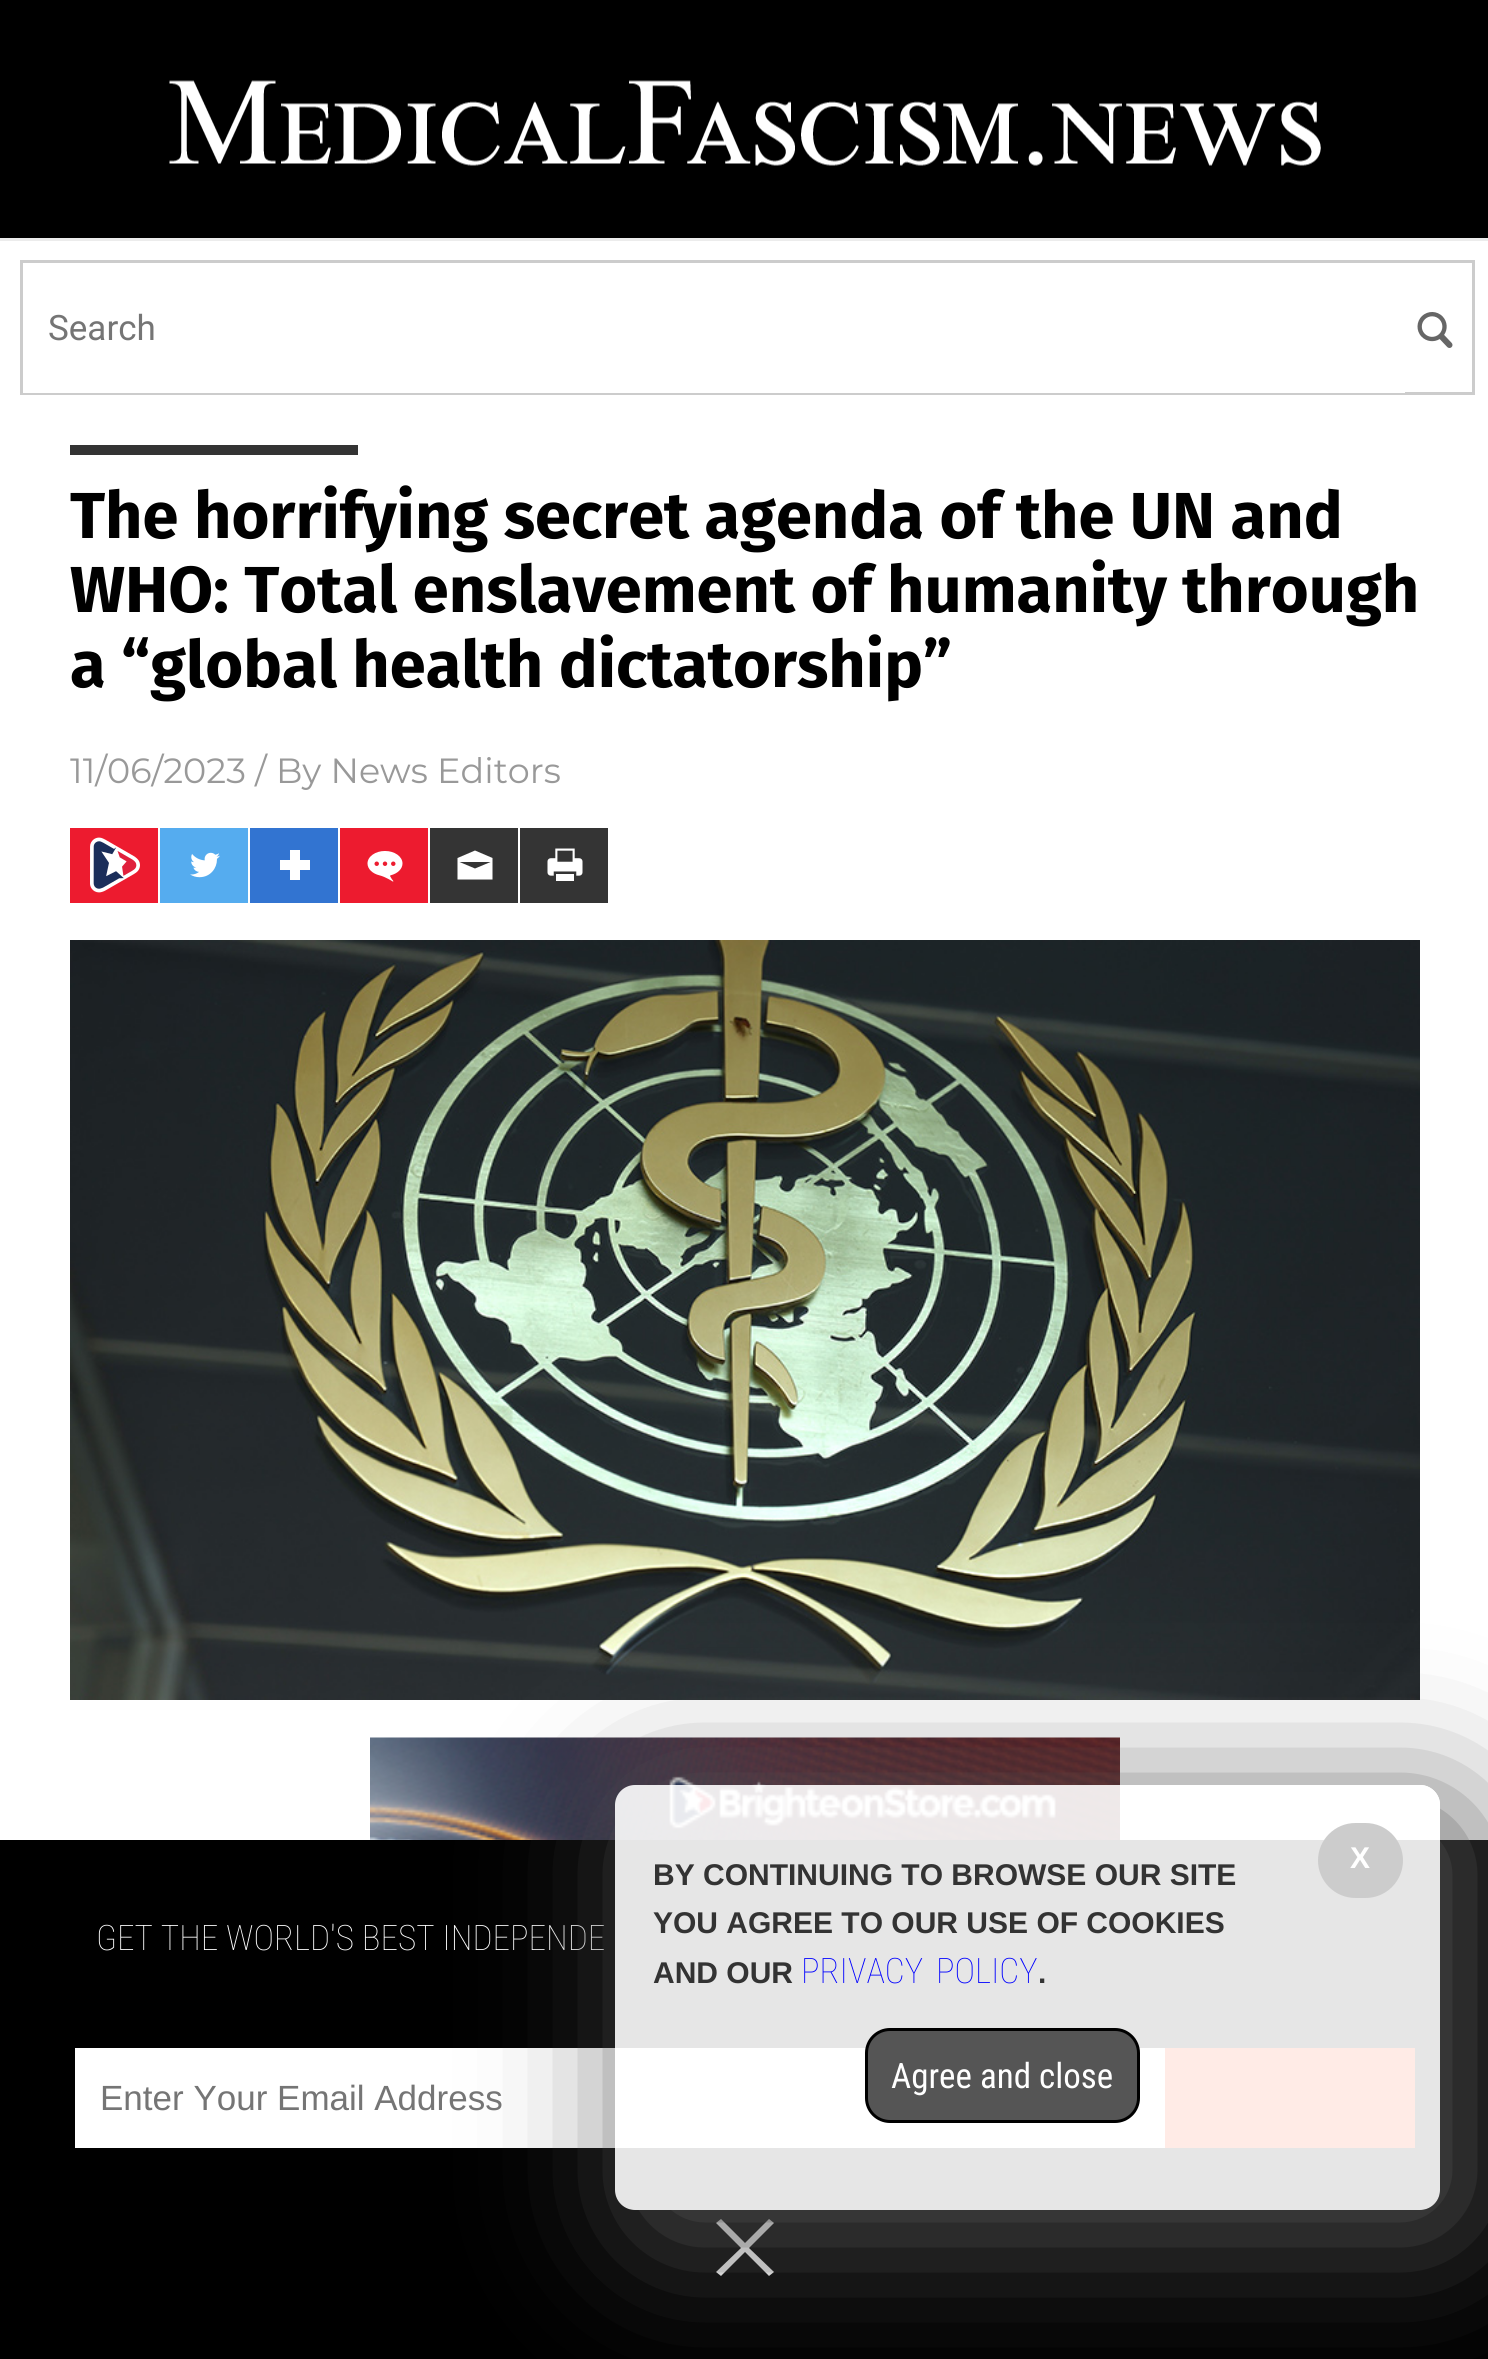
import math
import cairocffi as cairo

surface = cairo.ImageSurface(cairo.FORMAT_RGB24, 1488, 2359)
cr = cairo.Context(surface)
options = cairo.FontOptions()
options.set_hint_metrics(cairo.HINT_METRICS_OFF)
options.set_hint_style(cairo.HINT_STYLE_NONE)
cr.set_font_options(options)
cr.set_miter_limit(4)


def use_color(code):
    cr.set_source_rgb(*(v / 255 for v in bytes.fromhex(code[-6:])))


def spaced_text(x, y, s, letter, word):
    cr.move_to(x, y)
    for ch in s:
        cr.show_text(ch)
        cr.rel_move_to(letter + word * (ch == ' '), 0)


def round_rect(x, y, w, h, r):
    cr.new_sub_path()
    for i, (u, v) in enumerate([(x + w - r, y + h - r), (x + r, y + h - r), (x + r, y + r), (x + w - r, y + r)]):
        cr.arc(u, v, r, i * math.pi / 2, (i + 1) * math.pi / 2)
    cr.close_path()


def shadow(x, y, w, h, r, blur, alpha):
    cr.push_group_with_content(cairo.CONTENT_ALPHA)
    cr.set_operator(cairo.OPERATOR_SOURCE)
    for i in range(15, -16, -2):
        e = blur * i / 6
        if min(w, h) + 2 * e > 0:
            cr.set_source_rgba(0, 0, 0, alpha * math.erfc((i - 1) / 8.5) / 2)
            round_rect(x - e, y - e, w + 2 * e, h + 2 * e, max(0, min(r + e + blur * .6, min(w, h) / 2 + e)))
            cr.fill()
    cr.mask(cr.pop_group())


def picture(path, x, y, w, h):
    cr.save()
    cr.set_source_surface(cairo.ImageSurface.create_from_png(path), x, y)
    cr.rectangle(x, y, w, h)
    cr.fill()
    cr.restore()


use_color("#000000")
cr.paint()
picture("img1.png", 169, 80, 1152, 86)
use_color("#ffffff")
cr.rectangle(0, 241, 1488, 1599)
cr.fill()
use_color("#ececec")
cr.rectangle(0, 238, 1488, 3)
cr.fill()
cr.rectangle(21.5, 261.5, 1452, 132)
use_color("#cccccc")
cr.set_line_width(3)
cr.stroke()
use_color("#ffffff")
cr.rectangle(23, 392, 1382, 1)
cr.fill()
cr.select_font_face("Roboto")
cr.set_font_size(35)
use_color("#757575")
cr.move_to(48, 340)
cr.show_text("Search")
picture("img2.png", 1417, 312, 36, 36)
use_color("#333333")
cr.rectangle(70, 445, 288, 10)
cr.fill()
cr.select_font_face("Fira Sans", cairo.FONT_SLANT_NORMAL, cairo.FONT_WEIGHT_BOLD)
cr.set_font_size(65)
use_color("#000000")
cr.move_to(70, 538)
cr.show_text("The horrifying secret agenda of the UN and")
cr.move_to(70, 612)
cr.show_text("WHO: Total enslavement of humanity through")
cr.move_to(70, 687)
cr.show_text("a “global health dictatorship”")
cr.select_font_face("Montserrat")
cr.set_font_size(35)
use_color("#999999")
cr.move_to(70, 783)
cr.show_text("11/06/2023 / By News Editors")
use_color("#ed1b2f")
cr.rectangle(70, 828, 88, 75)
cr.fill()
picture("img3.png", 90, 837, 50, 56)
use_color("#55acef")
cr.rectangle(160, 828, 88, 75)
cr.fill()
picture("img4.png", 190, 852, 30, 26)
use_color("#3274d1")
cr.rectangle(250, 828, 88, 75)
cr.fill()
picture("img5.png", 280, 850, 30, 30)
use_color("#ed1b2f")
cr.rectangle(340, 828, 88, 75)
cr.fill()
picture("img6.png", 367, 851, 36, 31)
use_color("#343434")
cr.rectangle(430, 828, 88, 75)
cr.fill()
use_color("#ffffff")
cr.new_path()
cr.move_to(475, 850.5)
cr.line_to(457.5, 858)
cr.line_to(457.5, 879.5)
cr.line_to(492.5, 879.5)
cr.line_to(492.5, 858)
cr.close_path()
cr.move_to(475, 868.5)
cr.line_to(459.5, 862)
cr.line_to(490.5, 862)
cr.close_path()
cr.fill()
use_color("#343434")
cr.rectangle(520, 828, 88, 75)
cr.fill()
picture("img7.png", 547, 848, 36, 33)
picture("img8.png", 70, 940, 1350, 760)
picture("img9.png", 370, 1737, 750, 103)
cr.select_font_face("Roboto Condensed Thin")
use_color("#ffffff")
cr.move_to(96, 1950)
cr.show_text("GET THE WORLD'S BEST INDEPENDE")
cr.rectangle(75, 2048, 1090, 100)
cr.fill()
cr.select_font_face("Liberation Sans")
use_color("#757575")
cr.move_to(100, 2110)
cr.show_text("Enter Your Email Address")
use_color("#ff3300")
cr.rectangle(1165, 2048, 250, 100)
cr.fill()
use_color("#ffffff")
cr.new_path()
cr.move_to(774, 2223)
cr.line_to(769, 2219)
cr.line_to(745, 2243)
cr.line_to(721, 2219)
cr.line_to(716, 2223)
cr.line_to(741, 2248)
cr.line_to(716, 2272)
cr.line_to(721, 2276)
cr.line_to(745, 2252)
cr.line_to(769, 2276)
cr.line_to(774, 2272)
cr.line_to(749, 2248)
cr.close_path()
cr.fill()
cr.save()
cr.set_fill_rule(cairo.FILL_RULE_EVEN_ODD)
cr.new_path()
cr.move_to(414, 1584)
cr.line_to(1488, 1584)
cr.line_to(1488, 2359)
cr.line_to(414, 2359)
cr.close_path()
cr.move_to(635, 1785)
cr.line_to(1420, 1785)
cr.curve_to(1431, 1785, 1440, 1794, 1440, 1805)
cr.line_to(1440, 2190)
cr.curve_to(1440, 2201, 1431, 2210, 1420, 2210)
cr.line_to(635, 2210)
cr.curve_to(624, 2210, 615, 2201, 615, 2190)
cr.line_to(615, 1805)
cr.curve_to(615, 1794, 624, 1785, 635, 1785)
cr.close_path()
cr.clip()
use_color("#555555")
shadow(640, 1810, 825, 425, 20, 75, 1)
cr.restore()
cr.set_source_rgba(1, 1, 1, 0.9)
round_rect(615, 1785, 825, 425, 20)
cr.fill()
use_color("#cccccc")
round_rect(1318, 1823, 85, 75, 37.5)
cr.fill()
cr.select_font_face("Liberation Sans", cairo.FONT_SLANT_NORMAL, cairo.FONT_WEIGHT_BOLD)
cr.set_font_size(30)
use_color("#ffffff")
cr.move_to(1350, 1868)
cr.show_text("X")
use_color("#333333")
cr.move_to(653, 1885)
cr.show_text("BY CONTINUING TO BROWSE OUR SITE")
cr.move_to(653, 1933)
cr.show_text("YOU AGREE TO OUR USE OF COOKIES")
cr.move_to(653, 1983)
cr.show_text("AND OUR")
cr.select_font_face("Roboto Condensed Thin")
cr.set_font_size(35)
use_color("#0000ff")
spaced_text(801, 1983, "PRIVACY POLICY", 0, 5)
cr.select_font_face("Liberation Sans", cairo.FONT_SLANT_NORMAL, cairo.FONT_WEIGHT_BOLD)
cr.set_font_size(30)
use_color("#333333")
cr.move_to(1038, 1983)
cr.show_text(".")
use_color("#555555")
round_rect(866.5, 2029.5, 272, 92, 23.5)
cr.fill_preserve()
use_color("#000000")
cr.stroke()
cr.select_font_face("Roboto Condensed")
cr.set_font_size(35)
use_color("#ffffff")
cr.move_to(891, 2088)
cr.show_text("Agree and close")
surface.write_to_png("result.png")
